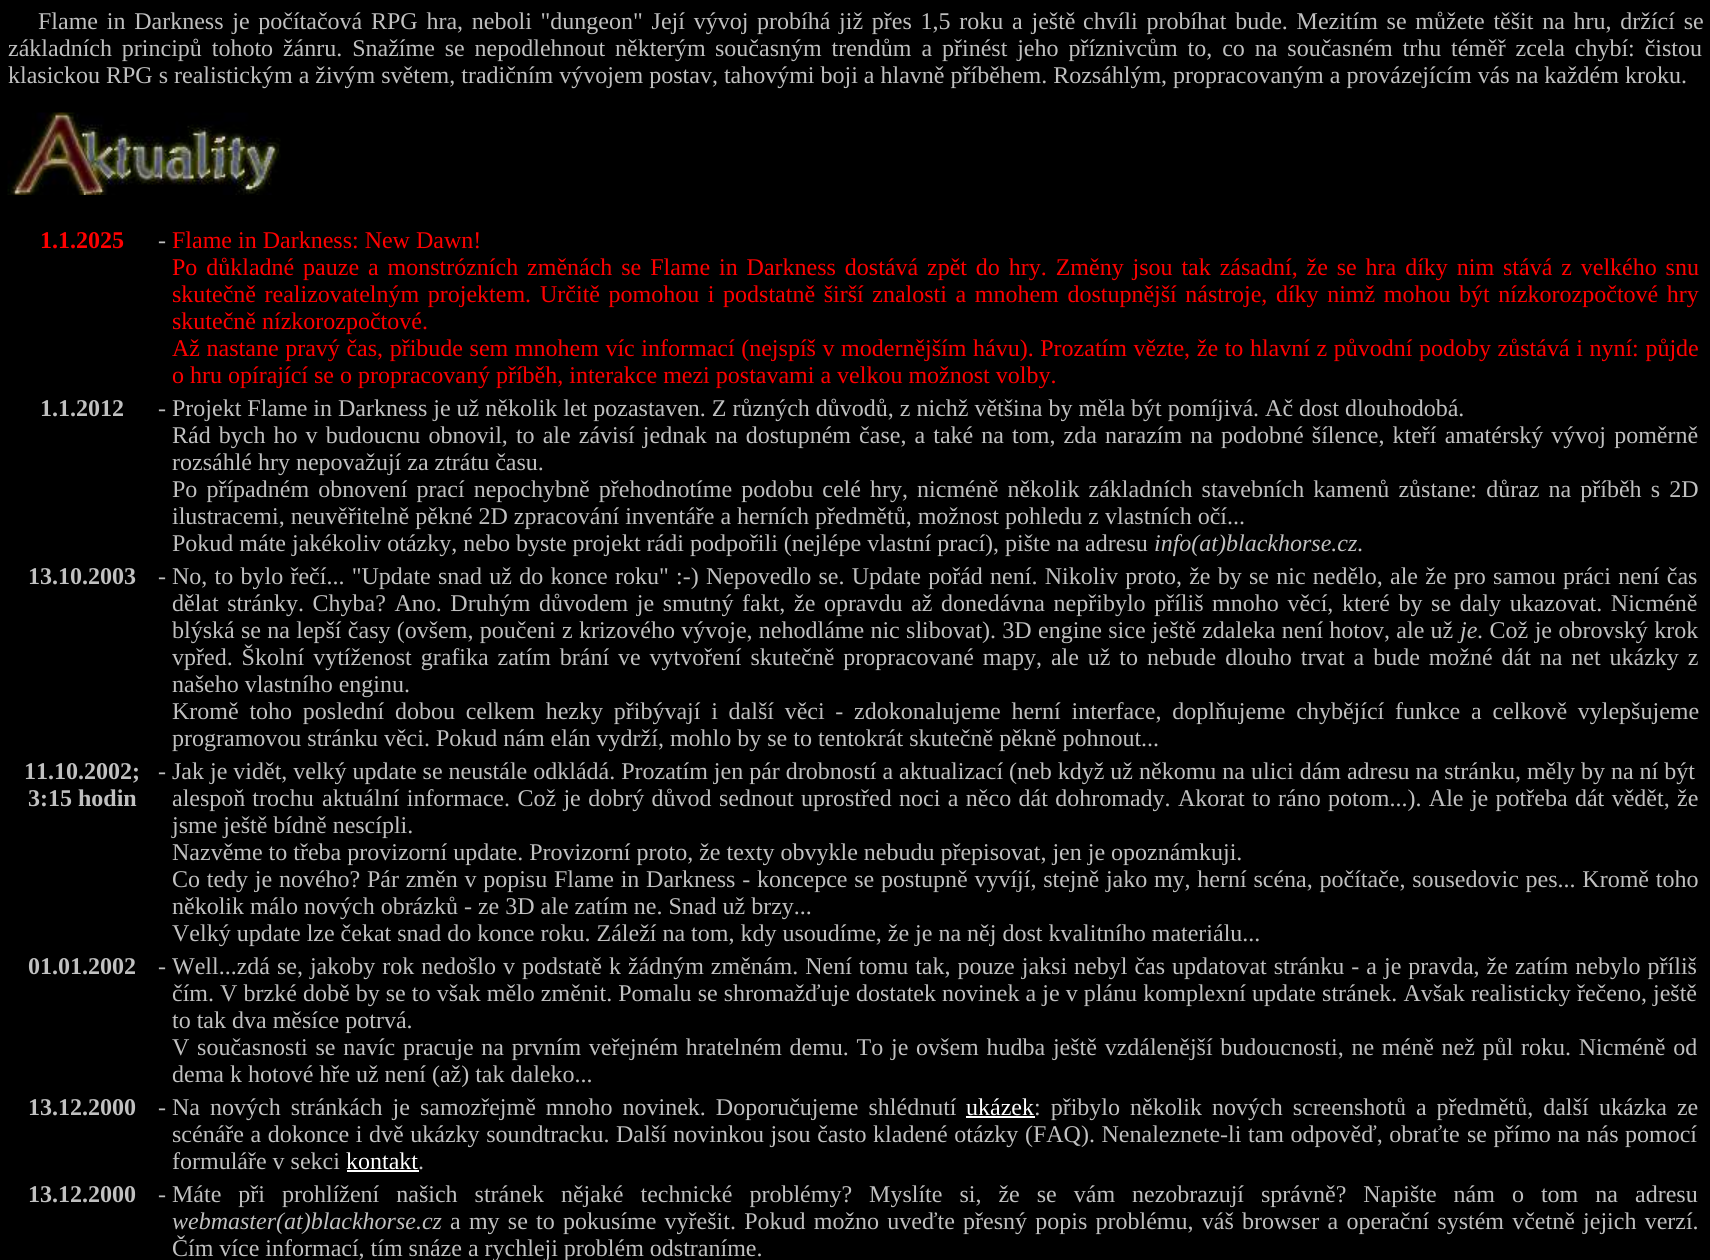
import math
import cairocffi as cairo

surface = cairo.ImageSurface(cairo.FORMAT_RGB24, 1710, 1260)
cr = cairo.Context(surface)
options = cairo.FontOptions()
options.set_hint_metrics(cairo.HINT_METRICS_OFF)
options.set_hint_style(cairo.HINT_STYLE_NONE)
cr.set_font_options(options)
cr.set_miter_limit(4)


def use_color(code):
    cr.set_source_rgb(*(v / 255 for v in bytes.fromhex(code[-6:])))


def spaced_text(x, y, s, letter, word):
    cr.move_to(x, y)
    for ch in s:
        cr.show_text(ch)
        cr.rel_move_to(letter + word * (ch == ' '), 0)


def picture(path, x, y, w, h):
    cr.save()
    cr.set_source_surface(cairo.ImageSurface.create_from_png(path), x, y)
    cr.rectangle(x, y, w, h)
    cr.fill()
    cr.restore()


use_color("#000000")
cr.paint()
cr.select_font_face("Liberation Serif")
cr.set_font_size(24)
use_color("#c0c0c0")
spaced_text(38, 29, "Flame in Darkness je počítačová RPG hra, neboli \"dungeon\" Její vývoj probíhá již přes 1,5 roku a ještě", 0, 2.75)
spaced_text(1083, 29, "chvíli probíhat bude. Mezitím se můžete těšit na hru, držící se", 0, 2.75)
spaced_text(8, 56, "základních principů tohoto žánru. Snažíme se nepodlehnout některým", 0, 3.9)
spaced_text(715, 56, "současným trendům a přinést jeho příznivcům to, co na současném trhu téměř zcela chybí: čistou", 0, 3.9)
cr.move_to(8, 83)
cr.show_text("klasickou RPG s realistickým a živým světem, tradičním vývojem postav, tahovými boji a hlavně příběhem. Rozsáhlým, propracovaným a provázejícím vás na každém kroku.")
picture("img1.png", 7, 112, 274, 83)
cr.select_font_face("Liberation Serif", cairo.FONT_SLANT_NORMAL, cairo.FONT_WEIGHT_BOLD)
use_color("#ff0000")
cr.move_to(40, 248)
cr.show_text("1.1.2025")
cr.select_font_face("Liberation Serif")
use_color("#c0c0c0")
cr.move_to(158, 248)
cr.show_text("-")
use_color("#ff0000")
cr.move_to(172, 248)
cr.show_text("Flame in Darkness: New Dawn!")
spaced_text(172, 275, "Po důkladné pauze a monstrózních změnách se Flame in Darkness dostává zpět do hry. Změny jsou tak zásadní, že se hra díky nim stává z velkého snu", 0, 2.9)
spaced_text(172, 302, "skutečně realizovatelným projektem.", 0, 2.6)
spaced_text(540, 302, "Určitě pomohou i podstatně širší znalosti a mnohem dostupnější nástroje, díky nimž mohou být nízkorozpočtové hry", 0, 2.6)
cr.move_to(172, 329)
cr.show_text("skutečně nízkorozpočtové.")
spaced_text(172, 356, "Až nastane pravý čas, přibude sem mnohem víc informací (nejspíš v modernějším hávu). Prozatím vězte, že to hlavní z původní podoby zůstává i nyní: půjde", 0, 0.6)
cr.move_to(172, 383)
cr.show_text("o hru opírající se o propracovaný příběh, interakce mezi postavami a velkou možnost volby.")
cr.select_font_face("Liberation Serif", cairo.FONT_SLANT_NORMAL, cairo.FONT_WEIGHT_BOLD)
use_color("#c0c0c0")
cr.move_to(40, 416)
cr.show_text("1.1.2012")
cr.select_font_face("Liberation Serif")
cr.move_to(158, 416)
cr.show_text("- Projekt Flame in Darkness je už několik let pozastaven. Z různých důvodů, z nichž většina by měla být pomíjivá. Ač dost dlouhodobá.")
spaced_text(172, 443, "Rád bych ho v budoucnu obnovil, to ale závisí jednak na dostupném čase, a také na tom, zda narazím na podobné šílence, kteří amatérský vývoj poměrně", 0, 2.1)
cr.move_to(172, 470)
cr.show_text("rozsáhlé hry nepovažují za ztrátu času.")
spaced_text(172, 497, "Po případném obnovení prací nepochybně přehodnotíme podobu celé hry, nicméně několik základních stavebních kamenů zůstane: důraz na příběh s 2D", 0, 3.1)
cr.move_to(172, 524)
cr.show_text("ilustracemi, neuvěřitelně pěkné 2D zpracování inventáře a herních předmětů, možnost pohledu z vlastních očí...")
cr.move_to(172, 551)
cr.show_text("Pokud máte jakékoliv otázky, nebo byste projekt rádi podpořili (nejlépe vlastní prací), pište na adresu")
cr.select_font_face("Liberation Serif", cairo.FONT_SLANT_ITALIC)
cr.move_to(1154, 551)
cr.show_text("info(at)blackhorse.cz")
cr.select_font_face("Liberation Serif")
cr.move_to(1357, 551)
cr.show_text(".")
cr.select_font_face("Liberation Serif", cairo.FONT_SLANT_NORMAL, cairo.FONT_WEIGHT_BOLD)
cr.move_to(28, 584)
cr.show_text("13.10.2003")
cr.select_font_face("Liberation Serif")
cr.move_to(158, 584)
cr.show_text("-")
spaced_text(172, 584, "No, to bylo řečí... \"Update snad už do konce roku\" :-) Nepovedlo se. Update pořád není. Nikoliv proto, že by se nic nedělo, ale že pro samou práci není čas", 0, 1.25)
spaced_text(172, 611, "dělat stránky. Chyba? Ano. Druhým důvodem je smutný fakt, že opravdu až donedávna nepřibylo příliš mnoho věcí, které by se daly ukazovat. Nicméně", 0, 2.6)
spaced_text(172, 638, "blýská se na lepší časy (ovšem, poučeni z krizového vývoje, nehodláme nic slibovat). 3D engine sice ještě zdaleka není hotov, ale už", 0, 0.3)
cr.select_font_face("Liberation Serif", cairo.FONT_SLANT_ITALIC)
cr.move_to(1460, 638)
cr.show_text("je")
cr.select_font_face("Liberation Serif")
spaced_text(1477, 638, ". Což je obrovský krok", 0, 0.5)
spaced_text(172, 665, "vpřed. Školní vytíženost grafika zatím brání ve vytvoření skutečně propracované mapy, ale už to nebude dlouho trvat a bude možné dát na net ukázky z", 0, 2.9)
cr.move_to(172, 692)
cr.show_text("našeho vlastního enginu.")
spaced_text(172, 719, "Kromě toho poslední dobou celkem hezky přibývají i další věci - zdokonalujeme herní interface, doplňujeme chybějící funkce a celkově vylepšujeme", 0, 4.75)
cr.move_to(172, 746)
cr.show_text("programovou stránku věci. Pokud nám elán vydrží, mohlo by se to tentokrát skutečně pěkně pohnout...")
cr.select_font_face("Liberation Serif", cairo.FONT_SLANT_NORMAL, cairo.FONT_WEIGHT_BOLD)
cr.move_to(24, 779)
cr.show_text("11.10.2002;")
cr.move_to(28, 806)
cr.show_text("3:15 hodin")
cr.select_font_face("Liberation Serif")
cr.move_to(158, 779)
cr.show_text("- Jak je vidět, velký update se neustále odkládá. Prozatím jen pár drobností a aktualizací (neb když už někomu na ulici dám adresu na stránku, měly by na ní být")
spaced_text(172, 806, "alespoň trochu", 0, 1)
spaced_text(322, 806, "aktuální informace. Což je dobrý důvod sednout uprostřed noci a něco dát dohromady. Akorat to ráno potom...). Ale je potřeba dát vědět, že", 0, 1.4)
cr.move_to(172, 833)
cr.show_text("jsme ještě bídně nescípli.")
cr.move_to(172, 860)
cr.show_text("Nazvěme to třeba provizorní update. Provizorní proto, že texty obvykle nebudu přepisovat, jen je opoznámkuji.")
spaced_text(172, 887, "Co tedy je nového? Pár změn v popisu Flame in Darkness - koncepce se postupně vyvíjí, stejně jako my, herní scéna, počítače, sousedovic pes... Kromě toho", 0, 0.75)
cr.move_to(172, 914)
cr.show_text("několik málo nových obrázků - ze 3D ale zatím ne. Snad už brzy...")
cr.move_to(172, 941)
cr.show_text("Velký update lze čekat snad do konce roku. Záleží na tom, kdy usoudíme, že je na něj dost kvalitního materiálu...")
cr.select_font_face("Liberation Serif", cairo.FONT_SLANT_NORMAL, cairo.FONT_WEIGHT_BOLD)
cr.move_to(28, 974)
cr.show_text("01.01.2002")
cr.select_font_face("Liberation Serif")
cr.move_to(158, 974)
cr.show_text("-")
spaced_text(172, 974, "Well...zdá se, jakoby rok nedošlo v podstatě k žádným změnám. Není tomu tak, pouze jaksi nebyl čas updatovat stránku - a je pravda, že zatím nebylo příliš", 0, 1)
spaced_text(172, 1001, "čím. V brzké době by se to však mělo změnit. Pomalu se shromažďuje dostatek novinek a je v plánu komplexní update stránek. Avšak realisticky řečeno, ještě", 0, 0.1)
cr.move_to(172, 1028)
cr.show_text("to tak dva měsíce potrvá.")
spaced_text(172, 1055, "V současnosti se navíc pracuje na prvním veřejném hratelném demu. To je ovšem hudba ještě vzdálenější budoucnosti, ne méně než půl roku. Nicméně od", 0, 1.75)
cr.move_to(172, 1082)
cr.show_text("dema k hotové hře už není (až) tak daleko...")
cr.select_font_face("Liberation Serif", cairo.FONT_SLANT_NORMAL, cairo.FONT_WEIGHT_BOLD)
cr.move_to(28, 1115)
cr.show_text("13.12.2000")
cr.select_font_face("Liberation Serif")
cr.move_to(158, 1115)
cr.show_text("-")
spaced_text(172, 1115, "Na nových stránkách je samozřejmě mnoho novinek. Doporučujeme shlédnutí", 0, 4)
use_color("#ffffff")
cr.move_to(966, 1115)
cr.show_text("ukázek")
cr.rectangle(966, 1116, 69, 2)
cr.fill()
use_color("#c0c0c0")
spaced_text(1034, 1115, ": přibylo několik nových screenshotů a předmětů, další", 0, 4)
spaced_text(1599, 1115, "ukázka ze", 0, 4)
spaced_text(172, 1142, "scénáře a dokonce i dvě ukázky soundtracku. Další novinkou jsou často kladené otázky (FAQ). Nenaleznete-li tam odpověď, obraťte", 0, 0.6)
spaced_text(1467, 1142, "se přímo na nás pomocí", 0, 0.5)
cr.move_to(172, 1169)
cr.show_text("formuláře v sekci")
use_color("#ffffff")
cr.move_to(346, 1169)
cr.show_text("kontakt")
cr.rectangle(347, 1170, 72, 2)
cr.fill()
use_color("#c0c0c0")
cr.move_to(418, 1169)
cr.show_text(".")
cr.select_font_face("Liberation Serif", cairo.FONT_SLANT_NORMAL, cairo.FONT_WEIGHT_BOLD)
cr.move_to(28, 1202)
cr.show_text("13.12.2000")
cr.select_font_face("Liberation Serif")
cr.move_to(158, 1202)
cr.show_text("-")
spaced_text(172, 1202, "Máte při prohlížení našich stránek nějaké technické problémy? Myslíte si, že se vám nezobrazují správně? Napište nám o tom na", 0, 11)
cr.move_to(1635, 1202)
cr.show_text("adresu")
cr.select_font_face("Liberation Serif", cairo.FONT_SLANT_ITALIC)
cr.move_to(172, 1229)
cr.show_text("webmaster(at)blackhorse.cz")
cr.select_font_face("Liberation Serif")
spaced_text(450, 1229, "a my se to pokusíme vyřešit. Pokud možno uveďte", 0, 2.25)
spaced_text(963, 1229, "přesný popis problému, váš browser a operační systém včetně jejich verzí.", 0, 2.25)
cr.move_to(172, 1256)
cr.show_text("Čím více informací, tím snáze a rychleji problém odstraníme.")
surface.write_to_png("result.png")
